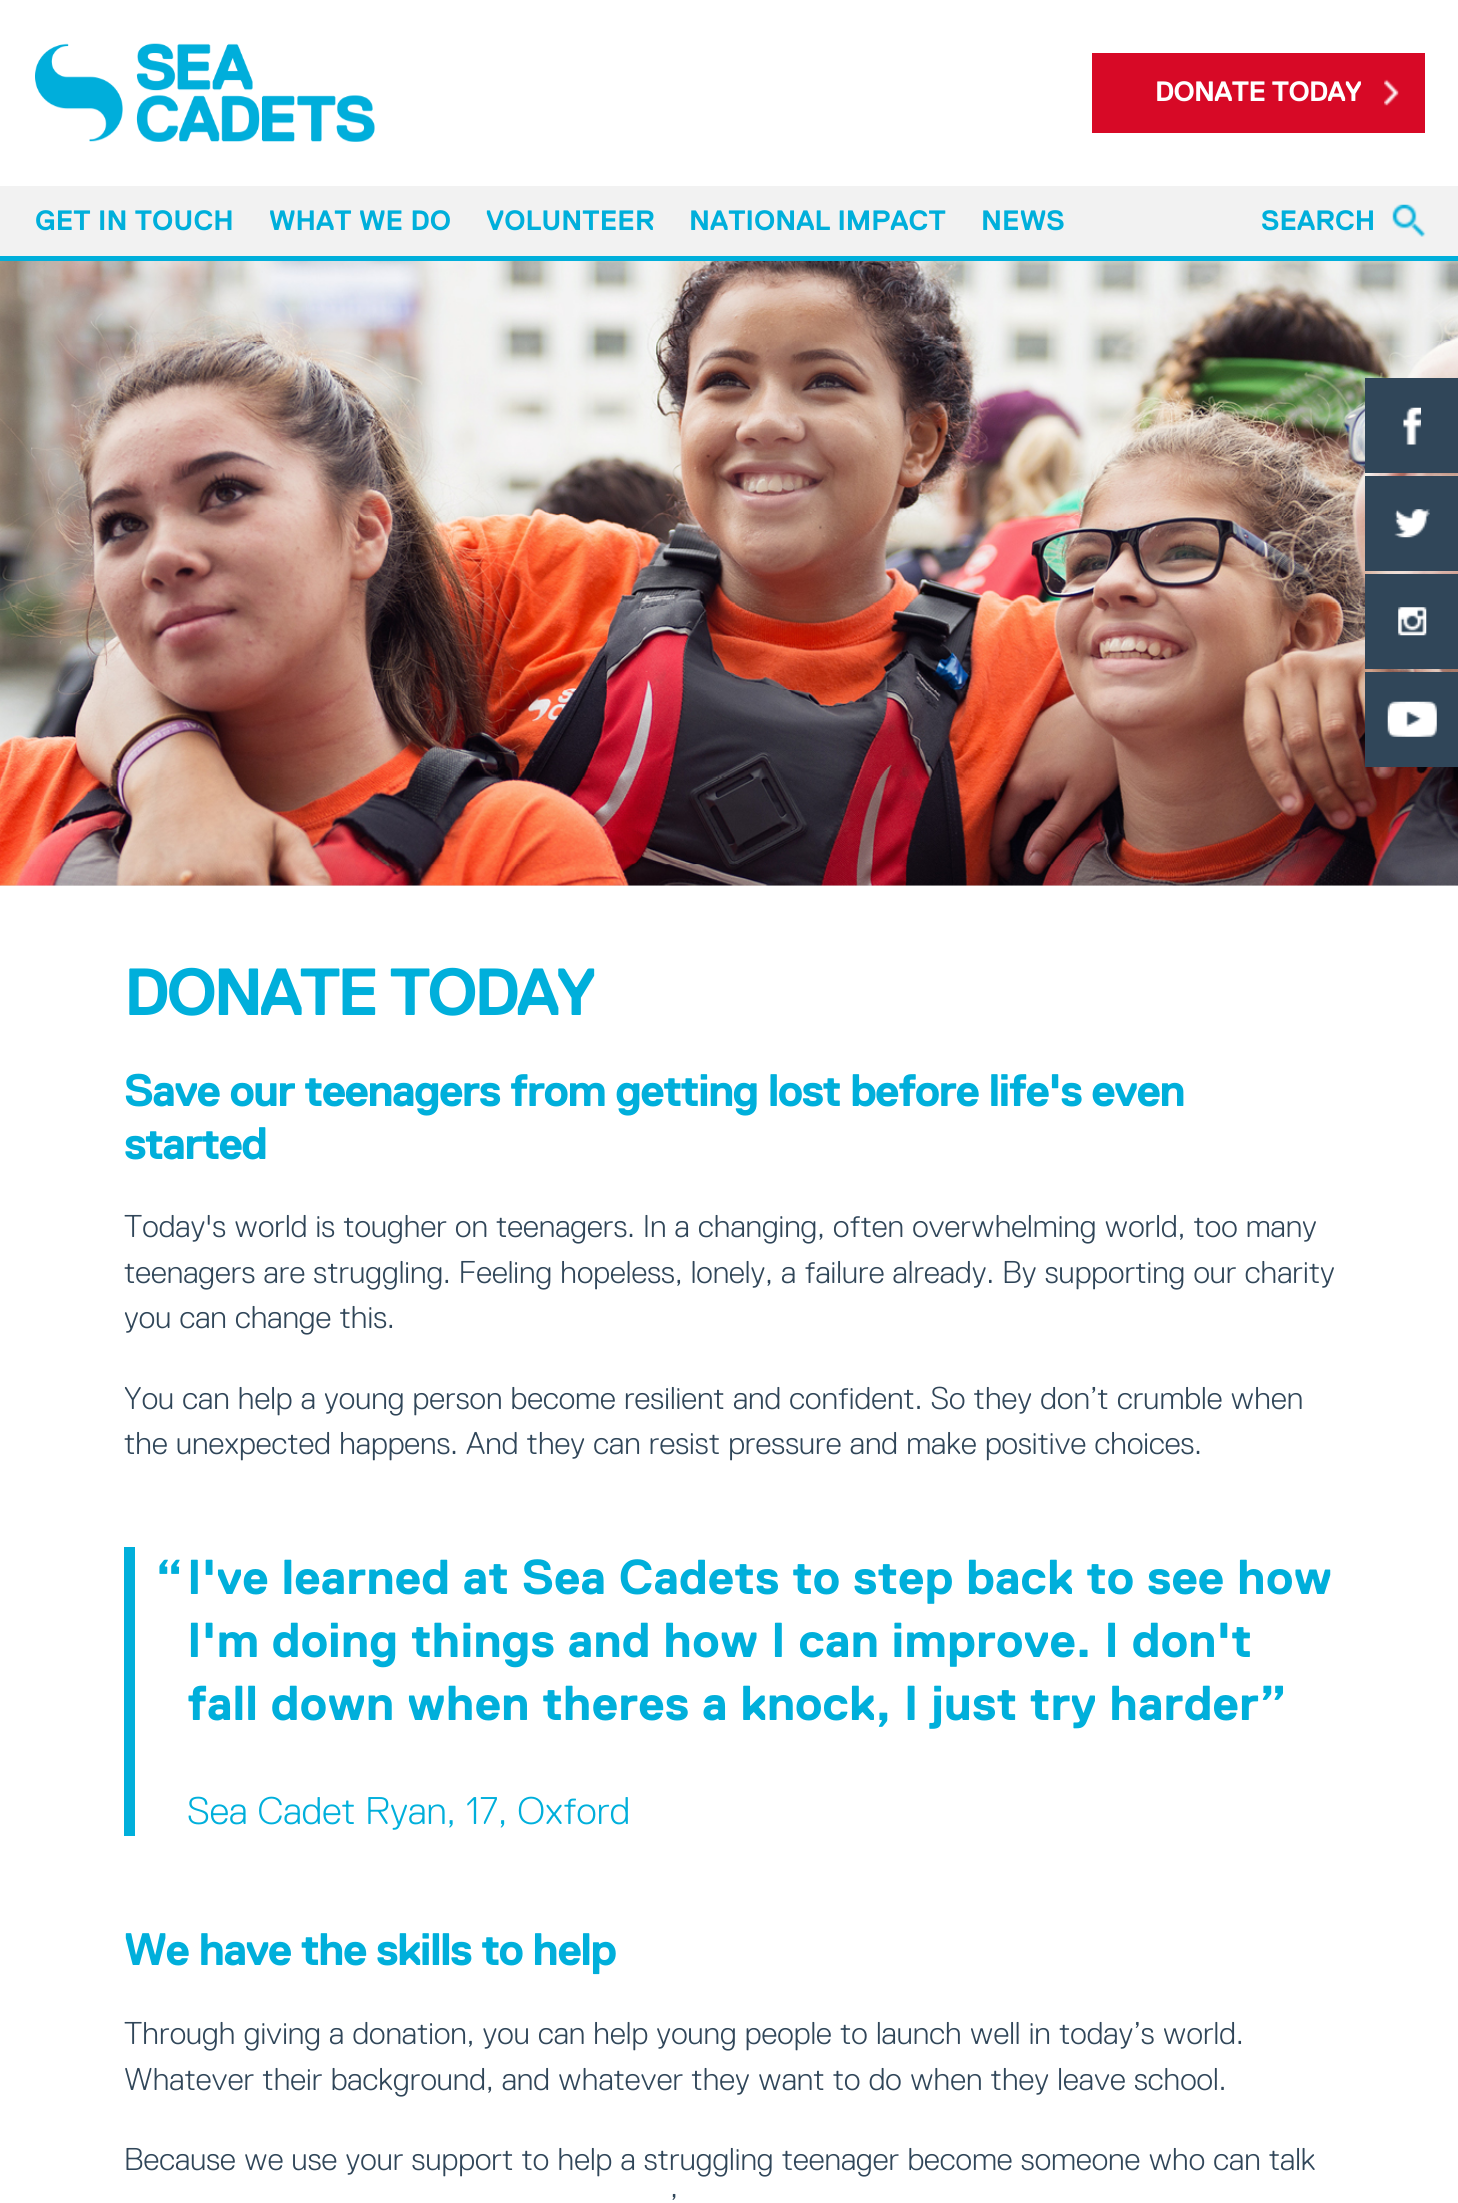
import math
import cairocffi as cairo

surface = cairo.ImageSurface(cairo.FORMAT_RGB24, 1458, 2203)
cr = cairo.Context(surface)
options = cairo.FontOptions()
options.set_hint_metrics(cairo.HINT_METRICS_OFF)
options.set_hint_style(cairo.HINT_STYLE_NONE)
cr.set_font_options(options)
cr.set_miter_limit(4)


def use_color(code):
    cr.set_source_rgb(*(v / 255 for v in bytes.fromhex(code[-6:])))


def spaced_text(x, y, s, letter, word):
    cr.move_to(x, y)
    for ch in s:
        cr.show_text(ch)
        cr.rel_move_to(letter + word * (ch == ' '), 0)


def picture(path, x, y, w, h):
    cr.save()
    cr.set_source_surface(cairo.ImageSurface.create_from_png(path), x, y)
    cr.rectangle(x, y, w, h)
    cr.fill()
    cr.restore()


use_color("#e5e5e5")
cr.paint()
use_color("#ffffff")
cr.rectangle(0, 0, 1458, 186)
cr.fill()
picture("img1.png", 35, 43, 340, 99)
use_color("#d70926")
cr.rectangle(1092, 53, 333, 80)
cr.fill()
cr.select_font_face("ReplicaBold", cairo.FONT_SLANT_NORMAL, cairo.FONT_WEIGHT_BOLD)
cr.set_font_size(28)
use_color("#ffffff")
spaced_text(1155, 101, "DONATE TODAY", -0.75, 0)
picture("img2.png", 1384, 79, 15, 27)
use_color("#f2f2f2")
cr.rectangle(0, 186, 1458, 70)
cr.fill()
use_color("#00afdb")
cr.rectangle(0, 256, 1458, 5)
cr.fill()
cr.move_to(35, 230)
cr.show_text("GET IN TOUCH")
cr.move_to(269, 230)
cr.show_text("WHAT WE DO")
cr.move_to(486, 230)
cr.show_text("VOLUNTEER")
cr.move_to(689, 230)
cr.show_text("NATIONAL IMPACT")
cr.move_to(981, 230)
cr.show_text("NEWS")
cr.move_to(1261, 230)
cr.show_text("SEARCH")
picture("img3.png", 1392, 204, 34, 33)
picture("img4.png", 0, 261, 1458, 625)
use_color("#304659")
cr.rectangle(1365, 378, 93, 95)
cr.fill()
picture("img5.png", 1403, 407, 18, 38)
cr.rectangle(1365, 476, 93, 95)
cr.fill()
picture("img6.png", 1394, 509, 36, 29)
cr.rectangle(1365, 574, 93, 95)
cr.fill()
picture("img7.png", 1398, 607, 29, 29)
cr.rectangle(1365, 672, 93, 95)
cr.fill()
picture("img8.png", 1387, 701, 50, 36)
use_color("#ffffff")
cr.rectangle(0, 886, 1458, 1317)
cr.fill()
cr.set_font_size(66.5)
use_color("#00afdb")
spaced_text(124, 1015, "DONATE TODAY", -3.5, 0)
cr.set_font_size(45.5)
spaced_text(124, 1106, "Save our teenagers from getting lost before life's even", -1.75, 0)
spaced_text(124, 1159, "started", -1.75, 0)
cr.select_font_face("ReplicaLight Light")
cr.set_font_size(31.5)
use_color("#304659")
cr.move_to(124, 1237)
cr.show_text("Today's world is tougher on teenagers. In a changing, often overwhelming world, too many")
cr.move_to(124, 1283)
cr.show_text("teenagers are struggling. Feeling hopeless, lonely, a failure already. By supporting our charity")
cr.move_to(124, 1328)
cr.show_text("you can change this.")
cr.move_to(124, 1409)
cr.show_text("You can help a young person become resilient and confident. So they don’t crumble when")
cr.move_to(124, 1454)
cr.show_text("the unexpected happens. And they can resist pressure and make positive choices.")
use_color("#00afdb")
cr.rectangle(124, 1547, 11, 289)
cr.fill()
cr.select_font_face("ReplicaBold", cairo.FONT_SLANT_NORMAL, cairo.FONT_WEIGHT_BOLD)
cr.set_font_size(49)
cr.move_to(156, 1594)
cr.show_text("“")
cr.move_to(187, 1594)
cr.show_text("I've learned at Sea Cadets to step back to see how")
cr.move_to(187, 1657)
cr.show_text("I'm doing things and how I can improve. I don't")
cr.move_to(187, 1720)
cr.show_text("fall down when theres a knock, I just try harder”")
cr.select_font_face("ReplicaLight Light")
cr.set_font_size(38.5)
cr.move_to(187, 1824)
cr.show_text("Sea Cadet Ryan, 17, Oxford")
cr.select_font_face("ReplicaBold", cairo.FONT_SLANT_NORMAL, cairo.FONT_WEIGHT_BOLD)
cr.set_font_size(45.5)
spaced_text(124, 1965, "We have the skills to help", -1.75, 0)
cr.select_font_face("ReplicaLight Light")
cr.set_font_size(31.5)
use_color("#304659")
cr.move_to(124, 2044)
cr.show_text("Through giving a donation, you can help young people to launch well in today’s world.")
cr.move_to(124, 2090)
cr.show_text("Whatever their background, and whatever they want to do when they leave school.")
cr.move_to(124, 2170)
cr.show_text("Because we use your support to help a struggling teenager become someone who can talk")
cr.move_to(670, 2216)
cr.show_text("’")
surface.write_to_png("result.png")
